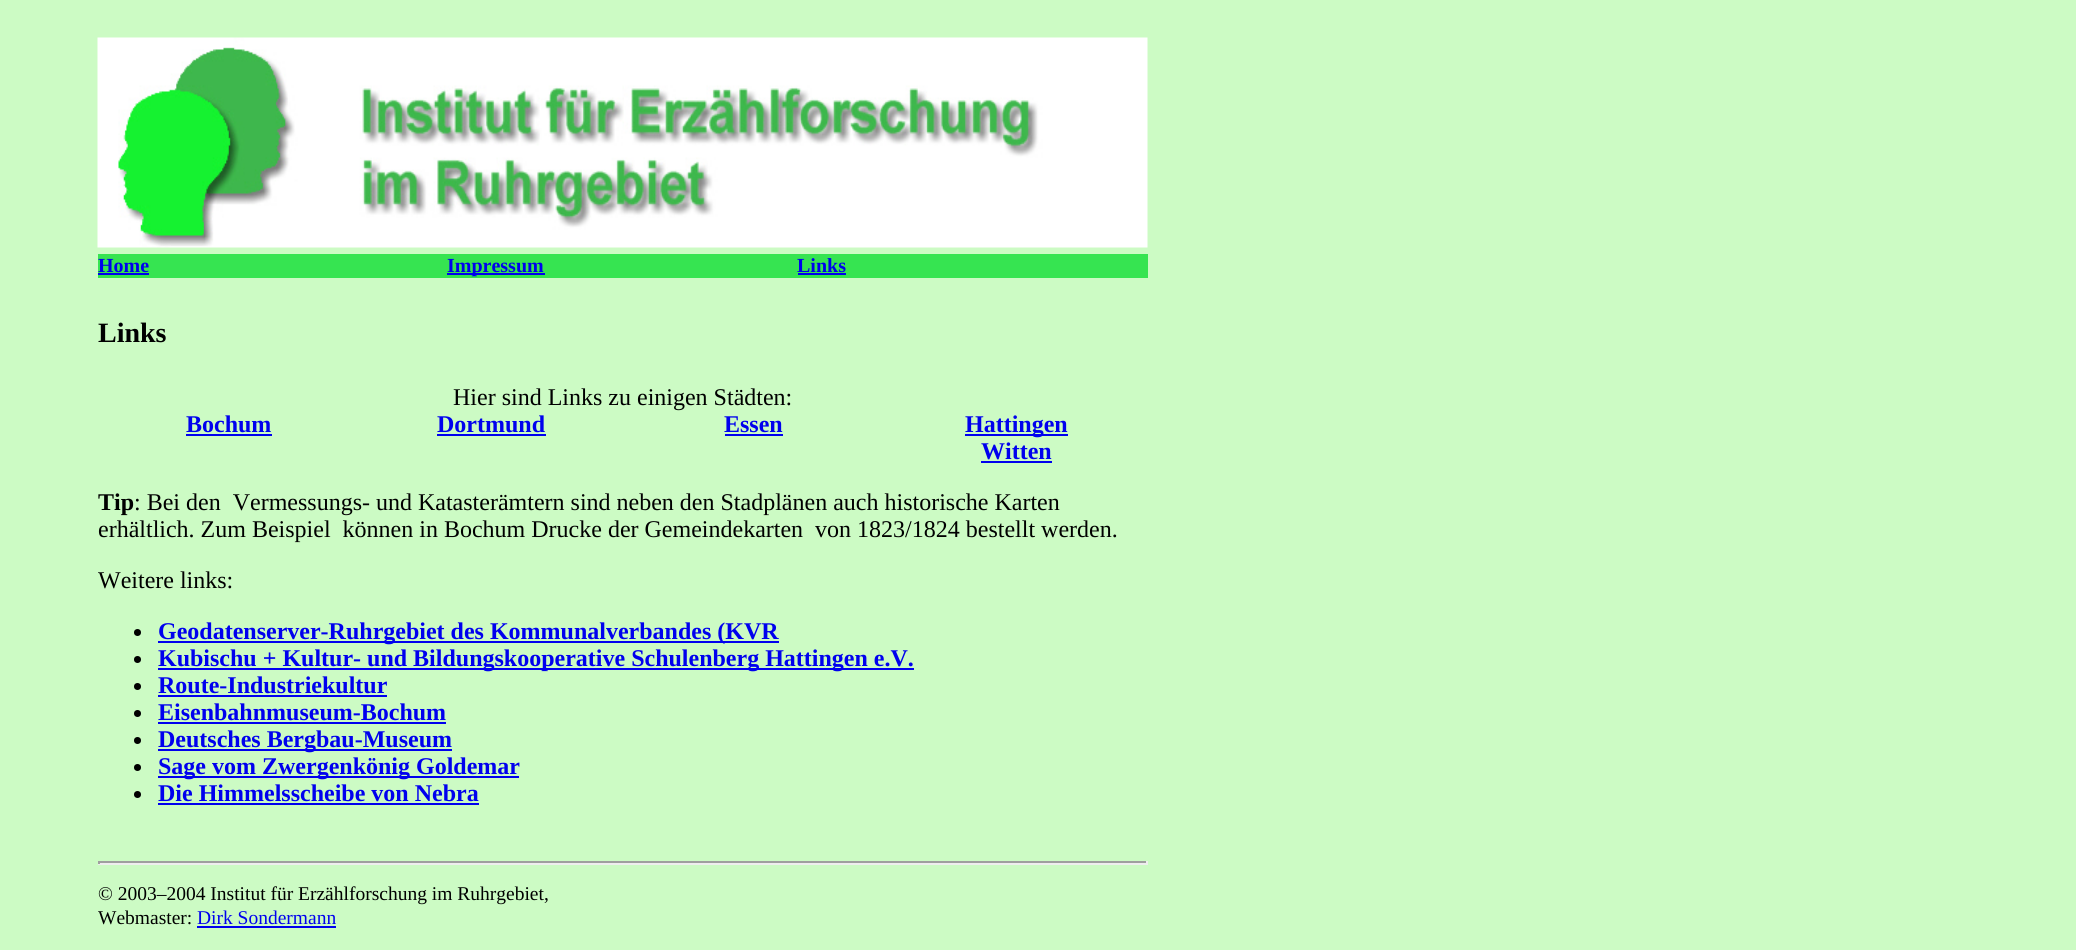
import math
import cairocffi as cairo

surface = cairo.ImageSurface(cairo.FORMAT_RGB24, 2076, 950)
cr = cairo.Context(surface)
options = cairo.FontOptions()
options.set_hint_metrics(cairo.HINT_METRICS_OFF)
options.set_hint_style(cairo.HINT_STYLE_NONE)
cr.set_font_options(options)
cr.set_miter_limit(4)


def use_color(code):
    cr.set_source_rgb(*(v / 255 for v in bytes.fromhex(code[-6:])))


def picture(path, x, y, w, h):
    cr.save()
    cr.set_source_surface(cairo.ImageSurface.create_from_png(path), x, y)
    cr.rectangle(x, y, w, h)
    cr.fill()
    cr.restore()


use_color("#ccfbc4")
cr.paint()
picture("img1.png", 97, 37, 1051, 211)
use_color("#36e451")
cr.rectangle(98, 254, 1050, 24)
cr.fill()
cr.select_font_face("Liberation Serif", cairo.FONT_SLANT_NORMAL, cairo.FONT_WEIGHT_BOLD)
cr.set_font_size(20)
use_color("#0000ee")
cr.move_to(98, 272)
cr.show_text("Home")
cr.rectangle(98, 273, 51, 2)
cr.fill()
cr.rectangle(447, 273, 98, 2)
cr.fill()
cr.move_to(447, 272)
cr.show_text("Impressum")
cr.move_to(797, 272)
cr.show_text("Links")
cr.rectangle(798, 273, 48, 2)
cr.fill()
cr.set_font_size(28)
use_color("#000000")
cr.move_to(98, 342)
cr.show_text("Links")
cr.select_font_face("Liberation Serif")
cr.set_font_size(24)
cr.move_to(453, 405)
cr.show_text("Hier sind Links zu einigen Städten:")
cr.select_font_face("Liberation Serif", cairo.FONT_SLANT_NORMAL, cairo.FONT_WEIGHT_BOLD)
use_color("#0000ee")
cr.move_to(186, 432)
cr.show_text("Bochum")
cr.rectangle(186, 434, 86, 2)
cr.fill()
cr.move_to(437, 432)
cr.show_text("Dortmund")
cr.rectangle(437, 434, 109, 2)
cr.fill()
cr.move_to(724, 432)
cr.show_text("Essen")
cr.rectangle(725, 434, 58, 2)
cr.fill()
cr.rectangle(965, 434, 103, 2)
cr.fill()
cr.move_to(965, 432)
cr.show_text("Hattingen")
cr.move_to(981, 459)
cr.show_text("Witten")
cr.rectangle(981, 461, 71, 2)
cr.fill()
use_color("#000000")
cr.move_to(98, 510)
cr.show_text("Tip")
cr.select_font_face("Liberation Serif")
cr.move_to(134, 510)
cr.show_text(": Bei den  Vermessungs- und Katasterämtern sind neben den Stadplänen auch historische Karten")
cr.move_to(98, 537)
cr.show_text("erhältlich. Zum Beispiel  können in Bochum Drucke der Gemeindekarten  von 1823/1824 bestellt werden.")
cr.move_to(98, 588)
cr.show_text("Weitere links:")
cr.new_path()
cr.arc(137.5, 632.5, 3.5, 0, 2 * math.pi)
cr.fill()
use_color("#0000ee")
cr.rectangle(158, 641, 621, 2)
cr.fill()
cr.select_font_face("Liberation Serif", cairo.FONT_SLANT_NORMAL, cairo.FONT_WEIGHT_BOLD)
cr.move_to(158, 639)
cr.show_text("Geodatenserver-Ruhrgebiet des Kommunalverbandes (KVR")
use_color("#000000")
cr.new_path()
cr.arc(137.5, 659.5, 3.5, 0, 2 * math.pi)
cr.fill()
use_color("#0000ee")
cr.rectangle(158, 668, 756, 2)
cr.fill()
cr.move_to(158, 666)
cr.show_text("Kubischu + Kultur- und Bildungskooperative Schulenberg Hattingen e.V.")
use_color("#000000")
cr.new_path()
cr.arc(137.5, 686.5, 3.5, 0, 2 * math.pi)
cr.fill()
use_color("#0000ee")
cr.move_to(158, 693)
cr.show_text("Route-Industriekultur")
cr.rectangle(158, 695, 229, 2)
cr.fill()
use_color("#000000")
cr.arc(137.5, 713.5, 3.5, 0, 2 * math.pi)
cr.fill()
use_color("#0000ee")
cr.move_to(158, 720)
cr.show_text("Eisenbahnmuseum-Bochum")
cr.rectangle(158, 722, 288, 2)
cr.fill()
use_color("#000000")
cr.arc(137.5, 740.5, 3.5, 0, 2 * math.pi)
cr.fill()
use_color("#0000ee")
cr.rectangle(158, 749, 294, 2)
cr.fill()
cr.move_to(158, 747)
cr.show_text("Deutsches Bergbau-Museum")
use_color("#000000")
cr.new_path()
cr.arc(137.5, 767.5, 3.5, 0, 2 * math.pi)
cr.fill()
use_color("#0000ee")
cr.rectangle(158, 776, 361, 2)
cr.fill()
cr.move_to(158, 774)
cr.show_text("Sage vom Zwergenkönig Goldemar")
use_color("#000000")
cr.new_path()
cr.arc(137.5, 794.5, 3.5, 0, 2 * math.pi)
cr.fill()
use_color("#0000ee")
cr.move_to(158, 801)
cr.show_text("Die Himmelsscheibe von Nebra")
cr.rectangle(158, 803, 321, 2)
cr.fill()
use_color("#9f9f9f")
cr.rectangle(98, 861, 1050, 2)
cr.fill()
use_color("#eeeeee")
cr.rectangle(1146, 861, 2, 3)
cr.fill()
cr.rectangle(98, 863, 1050, 2)
cr.fill()
use_color("#9f9f9f")
cr.rectangle(98, 861, 2, 3)
cr.fill()
cr.select_font_face("Liberation Serif")
cr.set_font_size(19.5)
use_color("#000000")
cr.move_to(98, 900)
cr.show_text("© 2003–2004 Institut für Erzählforschung im Ruhrgebiet,")
cr.move_to(98, 924)
cr.show_text("Webmaster:")
use_color("#0000ee")
cr.move_to(197, 924)
cr.show_text("Dirk Sondermann")
cr.rectangle(197, 926, 139, 2)
cr.fill()
surface.write_to_png("result.png")
